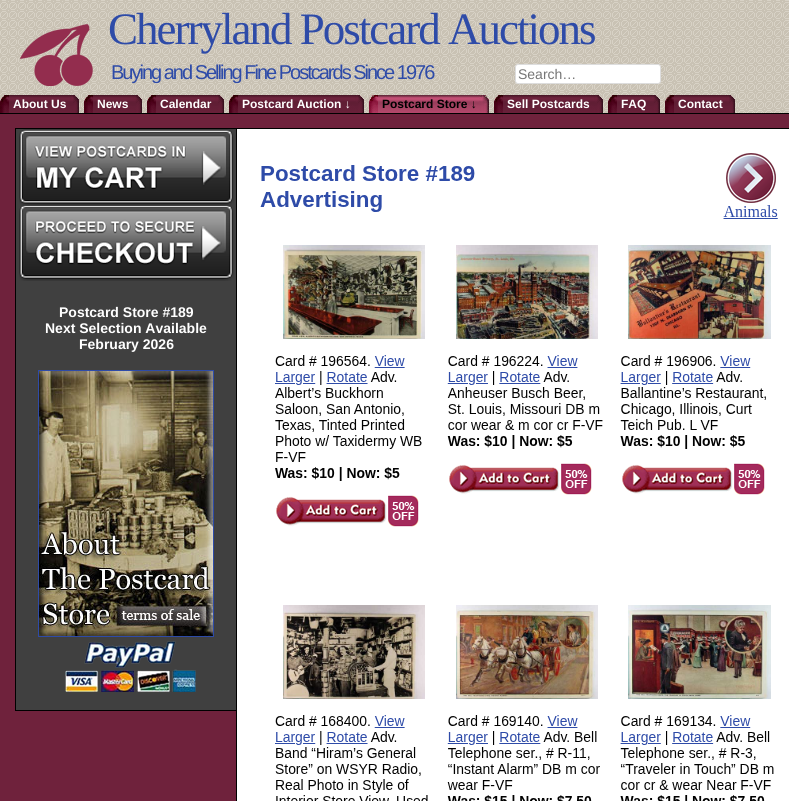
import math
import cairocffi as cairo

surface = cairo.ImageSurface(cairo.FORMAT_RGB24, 789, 801)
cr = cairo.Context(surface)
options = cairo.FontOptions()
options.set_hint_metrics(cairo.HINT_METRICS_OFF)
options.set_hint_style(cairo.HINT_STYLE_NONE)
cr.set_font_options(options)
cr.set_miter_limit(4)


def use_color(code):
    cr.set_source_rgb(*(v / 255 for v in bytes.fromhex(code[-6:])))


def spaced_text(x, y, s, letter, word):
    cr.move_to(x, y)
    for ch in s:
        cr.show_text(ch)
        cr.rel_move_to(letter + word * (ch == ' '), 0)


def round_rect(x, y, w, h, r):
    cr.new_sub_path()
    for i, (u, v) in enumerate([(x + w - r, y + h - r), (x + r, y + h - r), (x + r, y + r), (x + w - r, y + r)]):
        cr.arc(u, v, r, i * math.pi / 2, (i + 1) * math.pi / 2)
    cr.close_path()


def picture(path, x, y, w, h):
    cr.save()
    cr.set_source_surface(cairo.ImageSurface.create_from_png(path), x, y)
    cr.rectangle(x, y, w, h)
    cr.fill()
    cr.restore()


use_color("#ffffff")
cr.paint()
picture("img1.png", 0, 0, 789, 113)
picture("img2.png", 20, 24, 73, 62)
cr.select_font_face("Liberation Serif")
cr.set_font_size(45)
use_color("#2e4ba8")
spaced_text(108, 44, "Cherryland Postcard Auctions", -2, 0)
cr.select_font_face("Liberation Sans")
cr.set_font_size(20)
spaced_text(111, 79, "Buying and Selling Fine Postcards Since 1976", -2, 0)
use_color("#ffffff")
round_rect(515.5, 64.5, 145, 19, 2.5)
cr.fill_preserve()
use_color("#dddddd")
cr.set_line_width(1)
cr.stroke()
cr.set_font_size(14)
use_color("#757575")
cr.move_to(518, 79)
cr.show_text("Search…")
use_color("#000000")
cr.rectangle(0, 113, 789, 1)
cr.fill()
picture("img3.png", 0, 95, 9, 18)
picture("img4.png", 9, 95, 70, 18)
cr.select_font_face("Liberation Sans", cairo.FONT_SLANT_NORMAL, cairo.FONT_WEIGHT_BOLD)
cr.set_font_size(12)
use_color("#ffffff")
cr.move_to(13, 108)
cr.show_text("About Us")
picture("img3.png", 84, 95, 9, 18)
picture("img5.png", 93, 95, 49, 18)
cr.move_to(97, 108)
cr.show_text("News")
picture("img3.png", 147, 95, 9, 18)
picture("img6.png", 156, 95, 68, 18)
cr.move_to(160, 108)
cr.show_text("Calendar")
picture("img3.png", 229, 95, 9, 18)
picture("img7.png", 238, 95, 126, 18)
cr.move_to(242, 108)
cr.show_text("Postcard Auction ↓")
picture("img8.png", 369, 95, 9, 18)
picture("img9.png", 378, 95, 111, 18)
use_color("#000000")
cr.move_to(382, 108)
cr.show_text("Postcard Store ↓")
picture("img3.png", 494, 95, 9, 18)
picture("img10.png", 503, 95, 100, 18)
use_color("#ffffff")
cr.move_to(507, 108)
cr.show_text("Sell Postcards")
picture("img3.png", 608, 95, 9, 18)
picture("img11.png", 617, 95, 43, 18)
cr.move_to(621, 108)
cr.show_text("FAQ")
picture("img12.png", 665, 95, 9, 18)
picture("img13.png", 674, 95, 61, 18)
cr.move_to(678, 108)
cr.show_text("Contact")
use_color("#6f223c")
cr.rectangle(0, 114, 789, 687)
cr.fill()
use_color("#ffffff")
cr.rectangle(236.5, 128.5, 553, 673)
cr.fill_preserve()
use_color("#000000")
cr.stroke()
use_color("#404040")
cr.rectangle(15.5, 128.5, 221, 582)
cr.fill_preserve()
use_color("#000000")
cr.stroke()
picture("img14.png", 19, 129, 215, 152)
cr.set_font_size(14)
use_color("#ffffff")
cr.move_to(59, 317)
cr.show_text("Postcard Store #189")
cr.move_to(45, 333)
cr.show_text("Next Selection Available")
cr.move_to(79, 349)
cr.show_text("February 2026")
cr.rectangle(38.5, 370.5, 175, 266)
use_color("#2e4ba8")
cr.stroke()
picture("img15.png", 39, 371, 174, 265)
picture("img16.png", 65, 641, 131, 51)
picture("img17.png", 260, 153, 518, 648)
surface.write_to_png("result.png")
